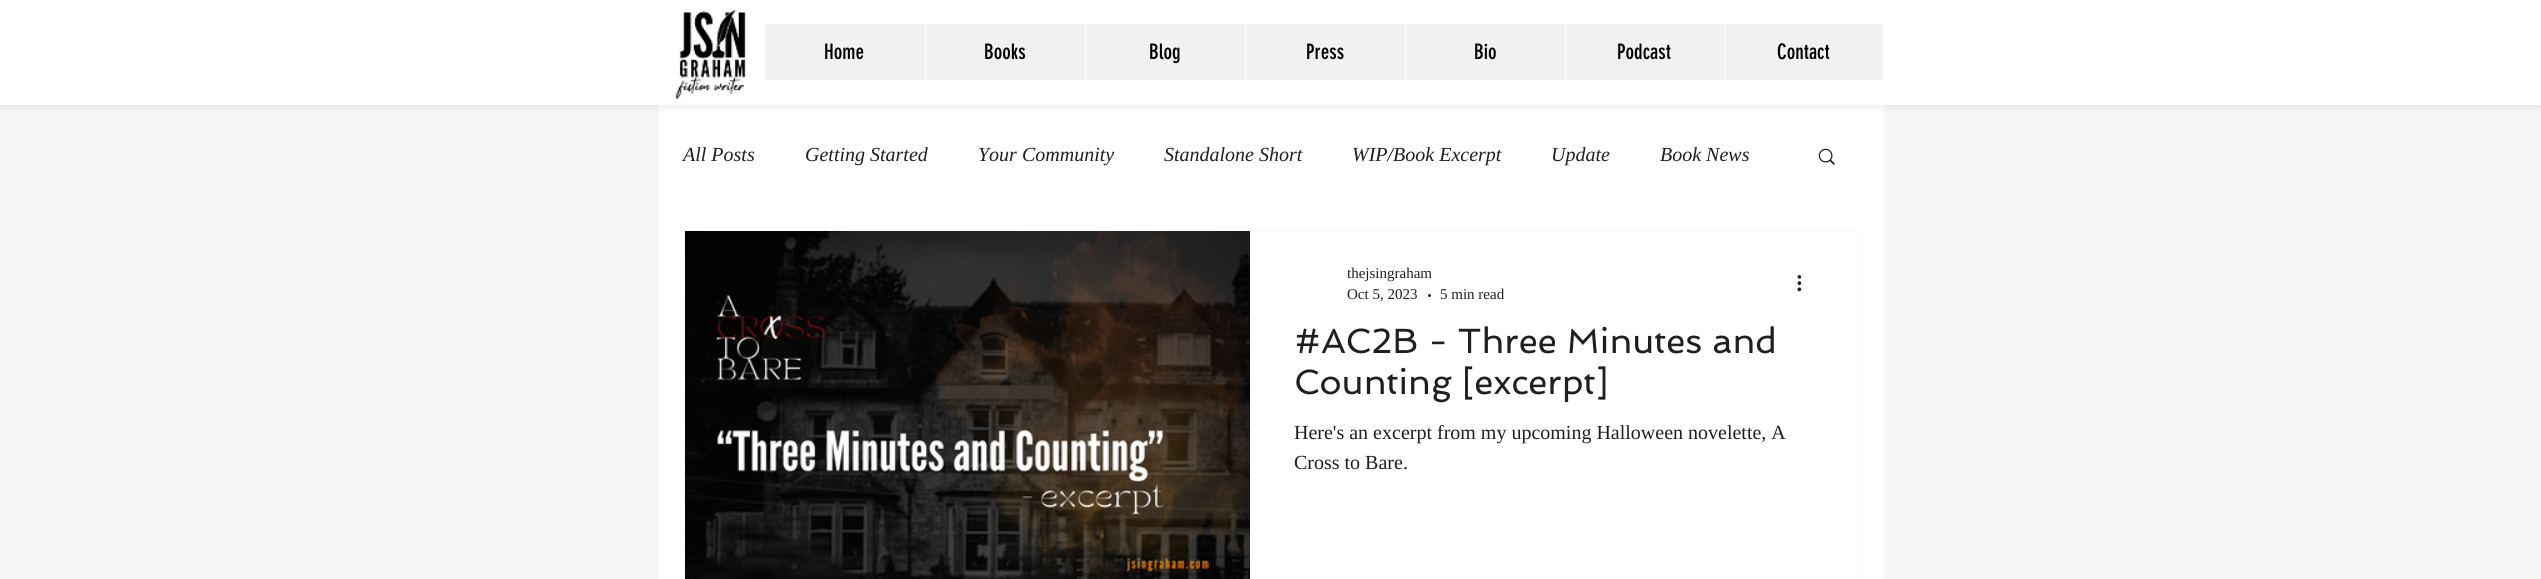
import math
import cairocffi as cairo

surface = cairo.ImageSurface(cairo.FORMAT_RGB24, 2541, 579)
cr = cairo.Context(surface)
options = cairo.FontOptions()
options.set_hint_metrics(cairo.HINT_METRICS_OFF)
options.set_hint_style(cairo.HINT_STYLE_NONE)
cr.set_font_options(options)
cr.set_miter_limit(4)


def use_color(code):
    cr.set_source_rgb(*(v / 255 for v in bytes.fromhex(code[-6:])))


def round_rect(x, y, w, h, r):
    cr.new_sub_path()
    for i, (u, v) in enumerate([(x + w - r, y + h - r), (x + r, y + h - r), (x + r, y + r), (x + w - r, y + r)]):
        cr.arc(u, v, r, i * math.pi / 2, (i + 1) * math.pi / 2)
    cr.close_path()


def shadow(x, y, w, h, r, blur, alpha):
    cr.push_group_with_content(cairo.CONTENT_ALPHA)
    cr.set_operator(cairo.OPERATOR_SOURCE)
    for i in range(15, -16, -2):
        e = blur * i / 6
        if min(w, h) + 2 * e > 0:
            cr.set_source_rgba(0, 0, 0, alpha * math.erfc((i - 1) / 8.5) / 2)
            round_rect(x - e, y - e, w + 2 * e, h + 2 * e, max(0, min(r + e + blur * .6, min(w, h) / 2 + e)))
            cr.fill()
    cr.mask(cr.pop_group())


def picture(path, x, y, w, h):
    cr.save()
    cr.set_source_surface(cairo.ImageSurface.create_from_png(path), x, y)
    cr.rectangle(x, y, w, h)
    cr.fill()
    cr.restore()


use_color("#f6f6f6")
cr.paint()
use_color("#ffffff")
cr.rectangle(659, 105, 1225, 474)
cr.fill()
use_color("#000000")
shadow(-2, -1, 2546, 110, 0, 3, 0.05)
use_color("#ffffff")
cr.rectangle(0, 0, 2541, 105)
cr.fill()
picture("img1.png", 675, 9, 71, 90)
use_color("#f1f1f1")
cr.rectangle(765, 24, 1118, 56)
cr.fill()
cr.select_font_face("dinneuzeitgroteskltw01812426")
cr.set_font_size(21)
use_color("#000000")
cr.move_to(824, 59)
cr.show_text("Home")
use_color("#ffffff")
cr.rectangle(925, 24, 1, 56)
cr.fill()
use_color("#000000")
cr.move_to(984, 59)
cr.show_text("Books")
use_color("#ffffff")
cr.rectangle(1085, 24, 1, 56)
cr.fill()
use_color("#000000")
cr.move_to(1149, 59)
cr.show_text("Blog")
use_color("#ffffff")
cr.rectangle(1245, 24, 1, 56)
cr.fill()
use_color("#000000")
cr.move_to(1306, 59)
cr.show_text("Press")
use_color("#ffffff")
cr.rectangle(1405, 24, 1, 56)
cr.fill()
use_color("#000000")
cr.move_to(1474, 59)
cr.show_text("Bio")
use_color("#ffffff")
cr.rectangle(1565, 24, 1, 56)
cr.fill()
use_color("#000000")
cr.move_to(1617, 59)
cr.show_text("Podcast")
use_color("#ffffff")
cr.rectangle(1724, 24, 1, 56)
cr.fill()
use_color("#000000")
cr.move_to(1777, 59)
cr.show_text("Contact")
cr.select_font_face("Liberation Serif", cairo.FONT_SLANT_ITALIC)
cr.set_font_size(20)
use_color("#1f1f1f")
cr.move_to(683, 161)
cr.show_text("All Posts")
cr.move_to(805, 161)
cr.show_text("Getting Started")
cr.move_to(978, 161)
cr.show_text("Your Community")
cr.move_to(1164, 161)
cr.show_text("Standalone Short")
cr.move_to(1352, 161)
cr.show_text("WIP/Book Excerpt")
cr.move_to(1551, 161)
cr.show_text("Update")
cr.move_to(1660, 161)
cr.show_text("Book News")
picture("img2.png", 1818, 148, 17, 17)
cr.rectangle(684.5, 230.5, 1174, 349)
use_color("#f8f8f8")
cr.set_line_width(1)
cr.stroke()
picture("img3.png", 685, 231, 565, 348)
cr.save()
cr.rectangle(1348, 264, 83, 19)
cr.clip()
cr.select_font_face("Liberation Serif")
cr.set_font_size(15)
use_color("#1f1f1f")
cr.move_to(1347, 278)
cr.show_text("thejsingraham")
cr.restore()
cr.select_font_face("Liberation Serif")
cr.set_font_size(15)
use_color("#1f1f1f")
cr.move_to(1347, 299)
cr.show_text("Oct 5, 2023")
cr.new_path()
cr.arc(1429.5, 295.5, 1.5, 0, 2 * math.pi)
cr.fill()
cr.move_to(1440, 299)
cr.show_text("5 min read")
picture("img4.png", 1797, 275, 5, 17)
cr.select_font_face("Spinnaker")
cr.set_font_size(35)
cr.move_to(1294, 353)
cr.show_text("#AC2B - Three Minutes and")
cr.move_to(1294, 394)
cr.show_text("Counting [excerpt]")
cr.select_font_face("Liberation Serif")
cr.set_font_size(20)
cr.move_to(1294, 439)
cr.show_text("Here's an excerpt from my upcoming Halloween novelette, A")
cr.move_to(1294, 469)
cr.show_text("Cross to Bare.")
surface.write_to_png("result.png")
